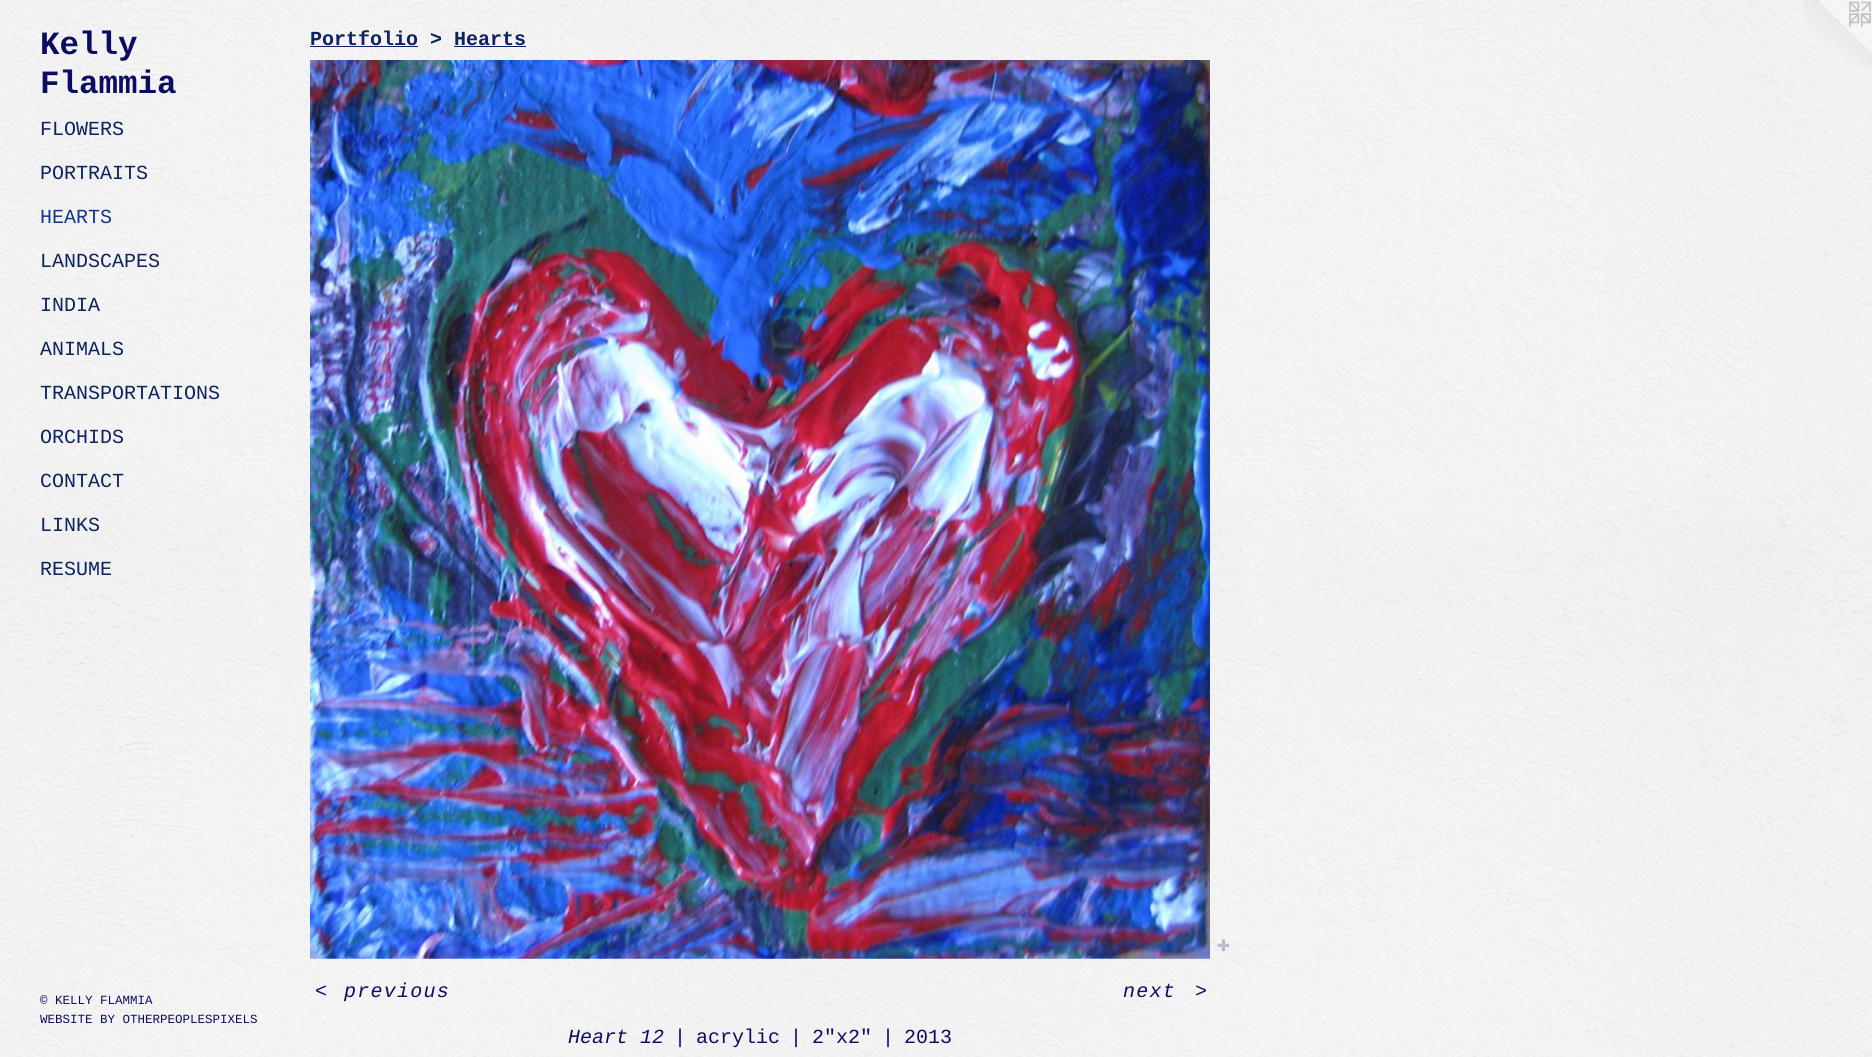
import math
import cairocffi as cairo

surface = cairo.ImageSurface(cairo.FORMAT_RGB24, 1872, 1057)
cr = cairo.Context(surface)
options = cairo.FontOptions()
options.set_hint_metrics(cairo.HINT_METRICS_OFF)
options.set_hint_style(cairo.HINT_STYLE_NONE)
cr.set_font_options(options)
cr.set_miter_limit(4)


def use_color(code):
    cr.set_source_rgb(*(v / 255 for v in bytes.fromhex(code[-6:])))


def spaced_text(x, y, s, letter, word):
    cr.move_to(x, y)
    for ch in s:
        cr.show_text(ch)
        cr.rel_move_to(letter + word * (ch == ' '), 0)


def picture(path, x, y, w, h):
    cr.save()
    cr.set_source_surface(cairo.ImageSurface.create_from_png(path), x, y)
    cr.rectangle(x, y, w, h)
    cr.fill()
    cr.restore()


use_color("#ffffff")
cr.paint()
picture("img1.png", 0, 0, 1872, 1057)
cr.select_font_face("Liberation Mono", cairo.FONT_SLANT_NORMAL, cairo.FONT_WEIGHT_BOLD)
cr.set_font_size(32.5)
use_color("#0b0e60")
cr.move_to(40, 54)
cr.show_text("Kelly")
cr.move_to(40, 93)
cr.show_text("Flammia")
cr.select_font_face("Liberation Mono")
cr.set_font_size(20)
use_color("#0d245e")
cr.move_to(40, 135)
cr.show_text("FLOWERS")
cr.move_to(40, 179)
cr.show_text("PORTRAITS")
use_color("#13358b")
cr.move_to(40, 223)
cr.show_text("HEARTS")
use_color("#0d245e")
cr.move_to(40, 267)
cr.show_text("LANDSCAPES")
cr.move_to(40, 311)
cr.show_text("INDIA")
cr.move_to(40, 355)
cr.show_text("ANIMALS")
cr.move_to(40, 399)
cr.show_text("TRANSPORTATIONS")
cr.move_to(40, 443)
cr.show_text("ORCHIDS")
cr.move_to(40, 487)
cr.show_text("CONTACT")
cr.move_to(40, 531)
cr.show_text("LINKS")
cr.move_to(40, 575)
cr.show_text("RESUME")
cr.set_font_size(12.5)
use_color("#0b0e60")
cr.move_to(40, 1004)
cr.show_text("© KELLY FLAMMIA")
cr.move_to(40, 1023)
cr.show_text("WEBSITE BY OTHERPEOPLESPIXELS")
cr.select_font_face("Liberation Mono", cairo.FONT_SLANT_NORMAL, cairo.FONT_WEIGHT_BOLD)
cr.set_font_size(20)
use_color("#0d245e")
cr.move_to(310, 45)
cr.show_text("Portfolio > Hearts")
cr.rectangle(310, 46, 108, 1)
cr.fill()
cr.rectangle(454, 46, 72, 1)
cr.fill()
picture("img2.png", 310, 60, 900, 899)
picture("img3.png", 1217, 939, 13, 13)
cr.select_font_face("Liberation Mono", cairo.FONT_SLANT_ITALIC)
use_color("#0b0e60")
spaced_text(315, 997, "<", 1.25, 0)
spaced_text(344, 997, "previous", 1.25, 0)
spaced_text(1123, 997, "next", 1.25, 0)
spaced_text(1195, 997, ">", 1.25, 0)
cr.move_to(568, 1043)
cr.show_text("Heart 12")
cr.select_font_face("Liberation Mono")
cr.move_to(674, 1043)
cr.show_text("|")
cr.move_to(696, 1043)
cr.show_text("acrylic")
cr.move_to(790, 1043)
cr.show_text("|")
cr.move_to(812, 1043)
cr.show_text("2\"x2\"")
cr.move_to(882, 1043)
cr.show_text("|")
cr.move_to(904, 1043)
cr.show_text("2013")
picture("img4.png", 1803, 0, 69, 69)
surface.write_to_png("result.png")
